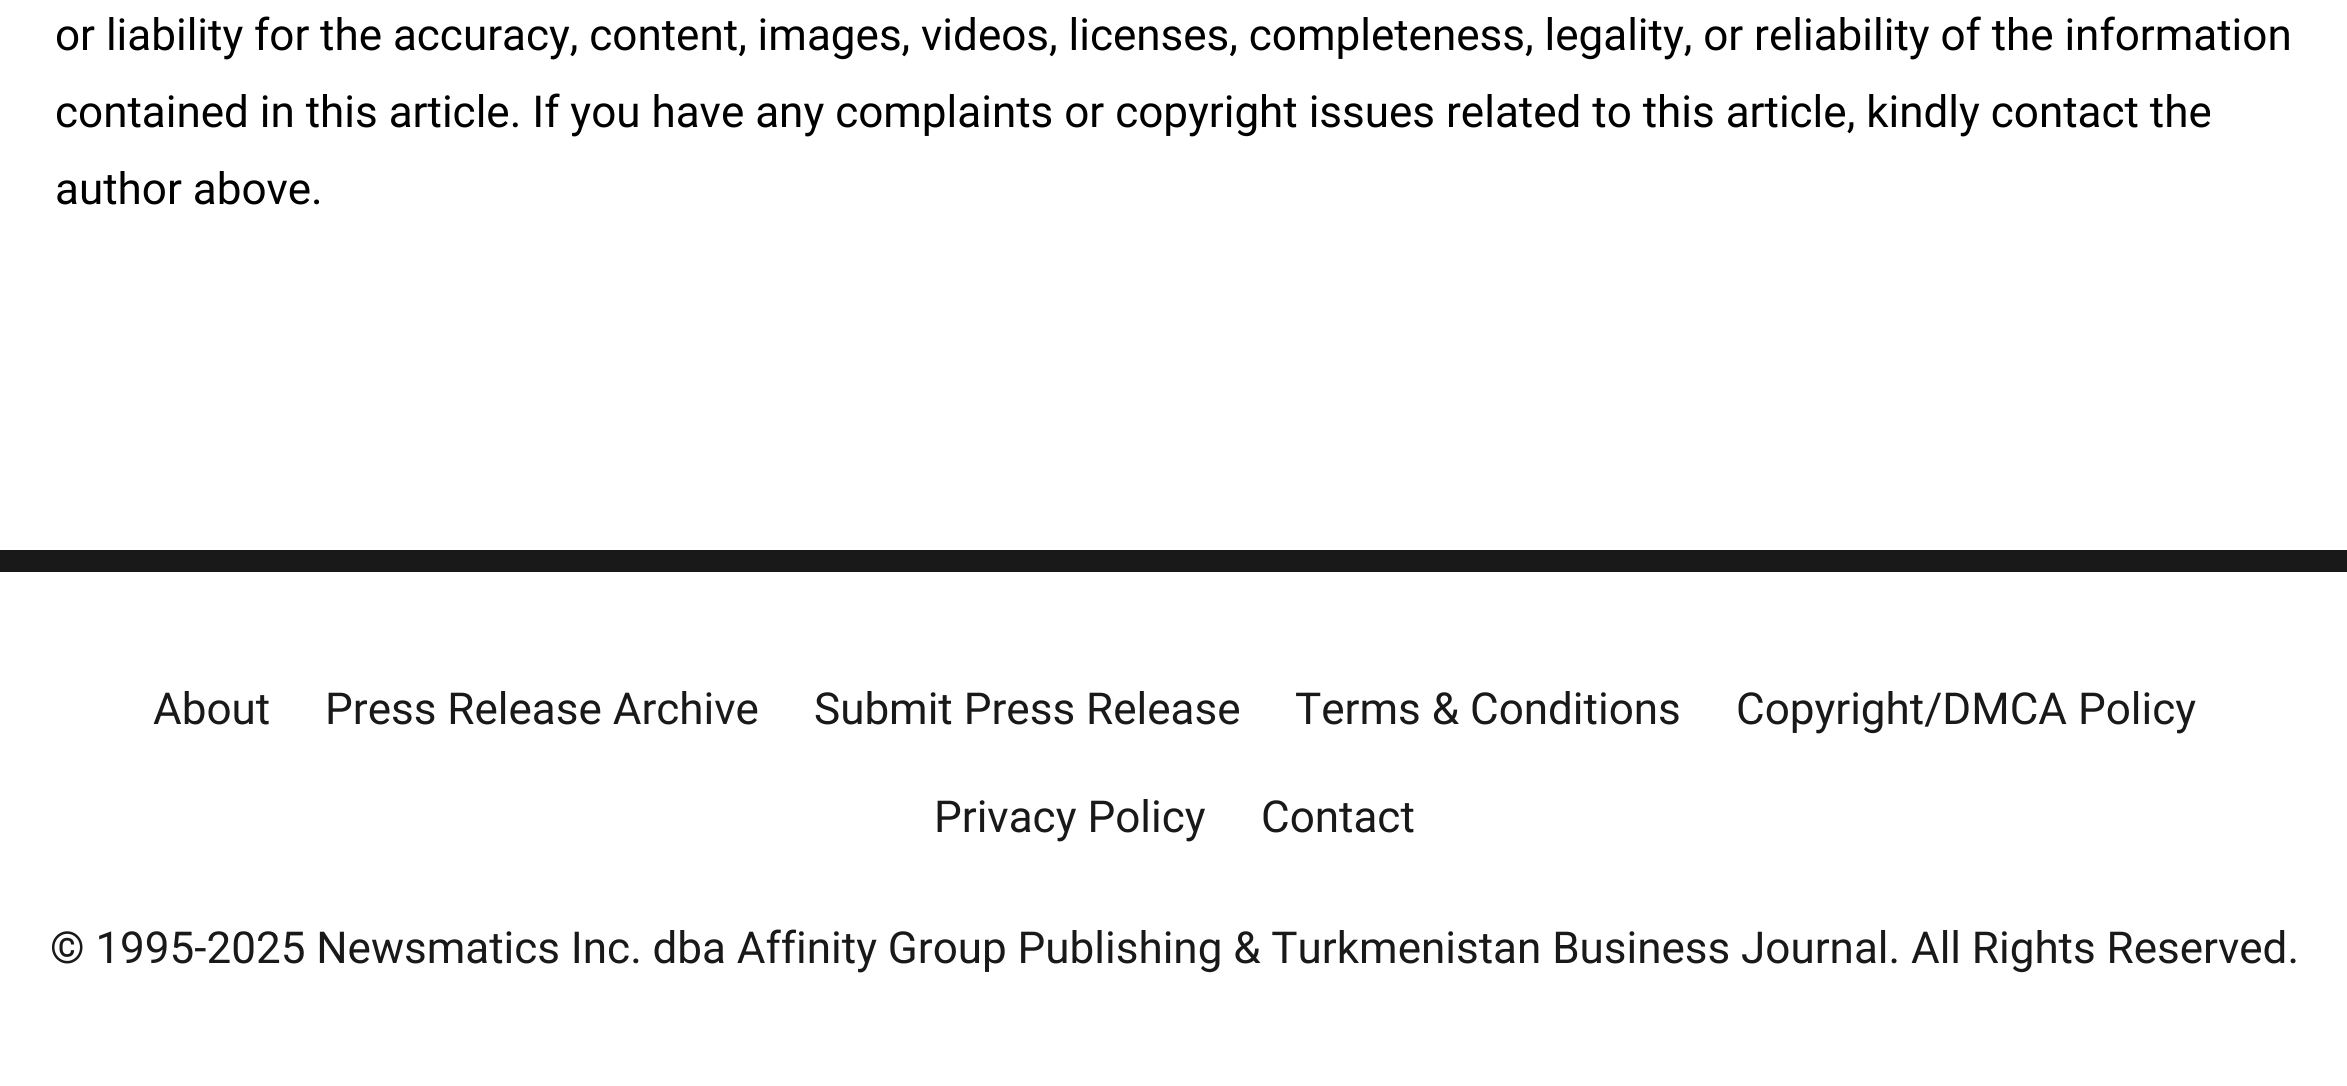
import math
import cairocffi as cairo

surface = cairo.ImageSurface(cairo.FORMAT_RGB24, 2347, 1086)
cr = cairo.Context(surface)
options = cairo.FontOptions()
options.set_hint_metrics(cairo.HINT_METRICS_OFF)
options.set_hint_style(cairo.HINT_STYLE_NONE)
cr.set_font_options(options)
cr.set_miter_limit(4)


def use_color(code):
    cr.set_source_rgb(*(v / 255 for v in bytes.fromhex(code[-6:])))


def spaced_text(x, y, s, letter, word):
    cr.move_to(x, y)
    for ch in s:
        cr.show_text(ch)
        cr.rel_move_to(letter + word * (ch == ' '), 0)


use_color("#ffffff")
cr.paint()
cr.select_font_face("Roboto")
cr.set_font_size(44)
use_color("#000000")
cr.move_to(55, 50)
cr.show_text("or liability")
spaced_text(254, 50, "for the accuracy, content, images, videos, licenses, completeness, legality, or reliability of the information", 0, -0.1)
cr.move_to(55, 127)
cr.show_text("contained in this article. If you have any complaints or copyright issues related to this article, kindly contact the")
cr.move_to(55, 204)
cr.show_text("author above.")
use_color("#191919")
cr.rectangle(0, 550, 2347, 22)
cr.fill()
cr.move_to(153, 724)
cr.show_text("About")
cr.move_to(325, 724)
cr.show_text("Press Release Archive")
cr.move_to(814, 724)
cr.show_text("Submit Press Release")
cr.move_to(1295, 724)
cr.show_text("Terms & Conditions")
cr.move_to(1736, 724)
cr.show_text("Copyright/DMCA Policy")
cr.move_to(934, 832)
cr.show_text("Privacy Policy")
cr.move_to(1261, 832)
cr.show_text("Contact")
spaced_text(50, 963, "© 1995-2025 Newsmatics Inc. dba Affinity Group Publishing & Turkmenistan Business Journal. All Rights Reserved.", 0, -0.1)
surface.write_to_png("result.png")
